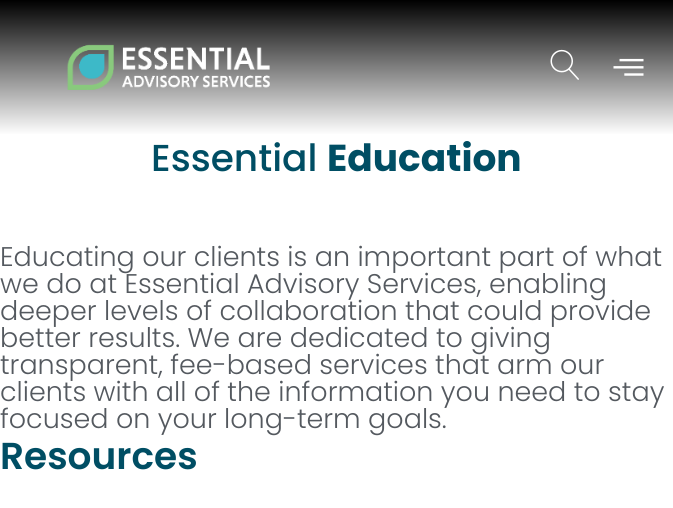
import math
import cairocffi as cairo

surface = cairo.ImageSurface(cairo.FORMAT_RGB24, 673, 508)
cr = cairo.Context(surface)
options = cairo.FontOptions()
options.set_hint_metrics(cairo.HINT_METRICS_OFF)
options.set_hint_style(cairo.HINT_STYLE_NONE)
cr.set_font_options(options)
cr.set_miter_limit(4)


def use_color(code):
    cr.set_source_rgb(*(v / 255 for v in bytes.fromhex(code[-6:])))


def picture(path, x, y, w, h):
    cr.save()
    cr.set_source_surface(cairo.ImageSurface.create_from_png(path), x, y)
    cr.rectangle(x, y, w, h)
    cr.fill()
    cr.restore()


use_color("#ffffff")
cr.paint()
gradient = cairo.LinearGradient(337, 0, 337, 135)
gradient.add_color_stop_rgba(0, 0, 0, 0, 1)
gradient.add_color_stop_rgba(1, 1, 1, 1, 1)
cr.set_source(gradient)
cr.rectangle(0, 0, 673, 134)
cr.fill()
picture("img1.png", 67, 44, 203, 46)
picture("img2.png", 550, 49, 29, 31)
picture("img3.png", 613, 58, 31, 18)
cr.select_font_face("Poppins Medium")
cr.set_font_size(37.5)
use_color("#004e64")
cr.move_to(151, 171)
cr.show_text("Essential")
cr.select_font_face("Poppins", cairo.FONT_SLANT_NORMAL, cairo.FONT_WEIGHT_BOLD)
cr.move_to(327, 171)
cr.show_text("Education")
cr.select_font_face("Poppins Light")
cr.set_font_size(27)
use_color("#54595f")
cr.move_to(0, 266)
cr.show_text("Educating our clients is an important part of what")
cr.move_to(0, 293)
cr.show_text("we do at Essential Advisory Services, enabling")
cr.move_to(0, 320)
cr.show_text("deeper levels of collaboration that could provide")
cr.move_to(0, 347)
cr.show_text("better results. We are dedicated to giving")
cr.move_to(0, 374)
cr.show_text("transparent, fee-based services that arm our")
cr.move_to(0, 401)
cr.show_text("clients with all of the information you need to stay")
cr.move_to(0, 428)
cr.show_text("focused on your long-term goals.")
cr.select_font_face("Poppins SemiBold")
cr.set_font_size(37.5)
use_color("#004e64")
cr.move_to(0, 469)
cr.show_text("Resources")
surface.write_to_png("result.png")
